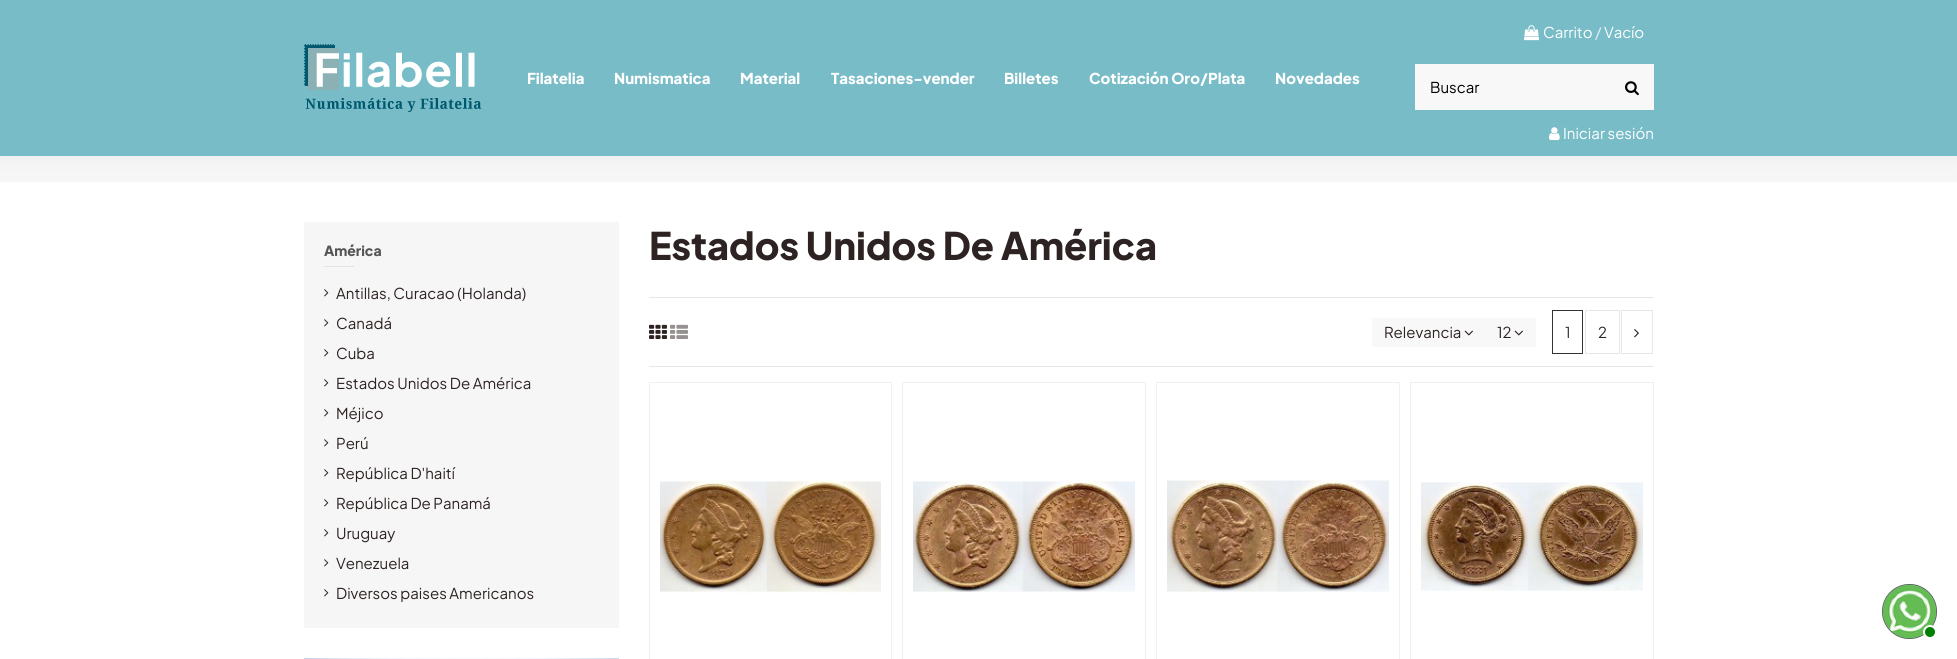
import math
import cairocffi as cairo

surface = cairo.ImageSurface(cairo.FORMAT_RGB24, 1957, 659)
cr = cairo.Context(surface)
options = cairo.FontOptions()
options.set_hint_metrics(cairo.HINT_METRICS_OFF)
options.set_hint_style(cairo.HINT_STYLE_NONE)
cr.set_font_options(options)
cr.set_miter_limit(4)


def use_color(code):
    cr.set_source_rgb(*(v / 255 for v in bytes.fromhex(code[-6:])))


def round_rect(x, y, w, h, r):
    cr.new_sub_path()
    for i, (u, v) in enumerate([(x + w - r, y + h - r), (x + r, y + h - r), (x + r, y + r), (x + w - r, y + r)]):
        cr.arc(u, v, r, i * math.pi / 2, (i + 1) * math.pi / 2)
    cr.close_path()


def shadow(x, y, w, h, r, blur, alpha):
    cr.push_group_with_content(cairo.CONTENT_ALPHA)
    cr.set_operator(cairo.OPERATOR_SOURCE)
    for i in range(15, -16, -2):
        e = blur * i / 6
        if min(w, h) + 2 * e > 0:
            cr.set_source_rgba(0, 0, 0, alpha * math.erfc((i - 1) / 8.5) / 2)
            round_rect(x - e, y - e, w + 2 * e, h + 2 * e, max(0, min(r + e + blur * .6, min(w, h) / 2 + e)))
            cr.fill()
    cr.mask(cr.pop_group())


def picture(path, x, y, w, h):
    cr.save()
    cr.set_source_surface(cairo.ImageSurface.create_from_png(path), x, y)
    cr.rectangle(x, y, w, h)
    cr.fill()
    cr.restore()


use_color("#ffffff")
cr.paint()
use_color("#f6f6f6")
cr.rectangle(0, 156, 1957, 26)
cr.fill()
use_color("#000000")
shadow(0, 0, 1957, 156, 0, 10, 0.05)
use_color("#78bcc7")
cr.rectangle(0, 0, 1957, 156)
cr.fill()
picture("img1.png", 304, 44, 178, 68)
cr.select_font_face("Plus Jakarta Sans ExtraBold")
cr.set_font_size(15)
use_color("#ffffff")
cr.move_to(527, 84)
cr.show_text("Filatelia")
cr.move_to(614, 84)
cr.show_text("Numismatica")
cr.move_to(740, 84)
cr.show_text("Material")
cr.move_to(831, 84)
cr.show_text("Tasaciones-vender")
cr.move_to(1004, 84)
cr.show_text("Billetes")
cr.move_to(1089, 84)
cr.show_text("Cotización Oro/Plata")
cr.move_to(1275, 84)
cr.show_text("Novedades")
picture("img2.png", 1524, 25, 15, 16)
cr.select_font_face("Plus Jakarta Sans")
cr.move_to(1543, 38)
cr.show_text("Carrito")
use_color("#e4f2f4")
cr.move_to(1595, 38)
cr.show_text("/")
use_color("#ffffff")
cr.move_to(1604, 38)
cr.show_text("Vacío")
use_color("#f8f8f8")
cr.rectangle(1415, 64, 239, 46)
cr.fill()
use_color("#000000")
cr.move_to(1430, 93)
cr.show_text("Buscar")
picture("img3.png", 1625, 81, 14, 15)
picture("img4.png", 1549, 127, 11, 14)
use_color("#ffffff")
cr.move_to(1563, 139)
cr.show_text("Iniciar sesión")
use_color("#f6f6f6")
cr.rectangle(304, 222, 315, 406)
cr.fill()
cr.select_font_face("Plus Jakarta Sans ExtraBold")
cr.set_font_size(14)
use_color("#555555")
cr.move_to(324, 256)
cr.show_text("América")
use_color("#e3e3e3")
cr.rectangle(324, 266, 30, 1)
cr.fill()
picture("img5.png", 324, 289, 5, 8)
cr.select_font_face("Plus Jakarta Sans")
cr.set_font_size(15)
use_color("#2e2323")
cr.move_to(336, 299)
cr.show_text("Antillas, Curacao (Holanda)")
picture("img5.png", 324, 319, 5, 8)
cr.move_to(336, 329)
cr.show_text("Canadá")
picture("img5.png", 324, 349, 5, 8)
cr.move_to(336, 359)
cr.show_text("Cuba")
picture("img5.png", 324, 379, 5, 8)
cr.move_to(336, 389)
cr.show_text("Estados Unidos De América")
picture("img5.png", 324, 409, 5, 8)
cr.move_to(336, 419)
cr.show_text("Méjico")
picture("img5.png", 324, 439, 5, 8)
cr.move_to(336, 449)
cr.show_text("Perú")
picture("img5.png", 324, 469, 5, 8)
cr.move_to(336, 479)
cr.show_text("República D'haití")
picture("img5.png", 324, 499, 5, 8)
cr.move_to(336, 509)
cr.show_text("República De Panamá")
picture("img5.png", 324, 529, 5, 8)
cr.move_to(336, 539)
cr.show_text("Uruguay")
picture("img5.png", 324, 559, 5, 8)
cr.move_to(336, 569)
cr.show_text("Venezuela")
picture("img5.png", 324, 589, 5, 8)
cr.move_to(336, 599)
cr.show_text("Diversos paises Americanos")
picture("img6.png", 304, 658, 315, 1)
cr.select_font_face("Plus Jakarta Sans ExtraBold")
cr.set_font_size(38)
cr.move_to(649, 260)
cr.show_text("Estados Unidos De América")
use_color("#e7e7e7")
cr.rectangle(649, 297, 1005, 1)
cr.fill()
cr.rectangle(649, 366, 1005, 1)
cr.fill()
picture("img7.png", 649, 324, 18, 15)
picture("img8.png", 670, 324, 18, 15)
use_color("#f8f8f8")
cr.rectangle(1372, 318, 164, 29)
cr.fill()
cr.select_font_face("Plus Jakarta Sans")
cr.set_font_size(15)
use_color("#2e2323")
cr.move_to(1384, 338)
cr.show_text("Relevancia")
picture("img9.png", 1464, 330, 9, 6)
cr.move_to(1497, 338)
cr.show_text("12")
picture("img9.png", 1514, 330, 9, 6)
cr.rectangle(1552.5, 310.5, 30, 43)
use_color("#333333")
cr.set_line_width(1)
cr.stroke()
cr.move_to(1565, 338)
cr.show_text("1")
cr.rectangle(1585.5, 310.5, 34, 43)
use_color("#e7e7e7")
cr.stroke()
use_color("#2e2323")
cr.move_to(1598, 338)
cr.show_text("2")
cr.rectangle(1621.5, 310.5, 31, 43)
use_color("#e7e7e7")
cr.stroke()
picture("img10.png", 1634, 329, 5, 9)
cr.rectangle(649.5, 382.5, 242, 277)
use_color("#f0f0f0")
cr.stroke()
picture("img11.png", 660, 479, 221, 115)
cr.rectangle(902.5, 382.5, 243, 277)
cr.stroke()
picture("img12.png", 913, 481, 222, 111)
cr.rectangle(1156.5, 382.5, 243, 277)
cr.stroke()
picture("img13.png", 1167, 480, 222, 112)
cr.rectangle(1410.5, 382.5, 243, 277)
cr.stroke()
picture("img14.png", 1421, 482, 222, 109)
use_color("#c6edd0")
cr.arc(1909.5, 611.5, 27.5, 0, 2 * math.pi)
cr.fill()
cr.set_source_rgba(0.102, 0.718, 0.267, 0.25)
cr.arc(1909.5, 611.5, 27.5, 0, 2 * math.pi)
cr.fill()
cr.arc(1909.5, 611.5, 27, 0, 2 * math.pi)
cr.fill_preserve()
use_color("#666666")
cr.stroke()
picture("img15.png", 1883, 585, 53, 53)
use_color("#008000")
cr.arc(1930, 632, 6, 0, 2 * math.pi)
cr.fill_preserve()
use_color("#ffffff")
cr.set_line_width(2)
cr.stroke()
surface.write_to_png("result.png")
